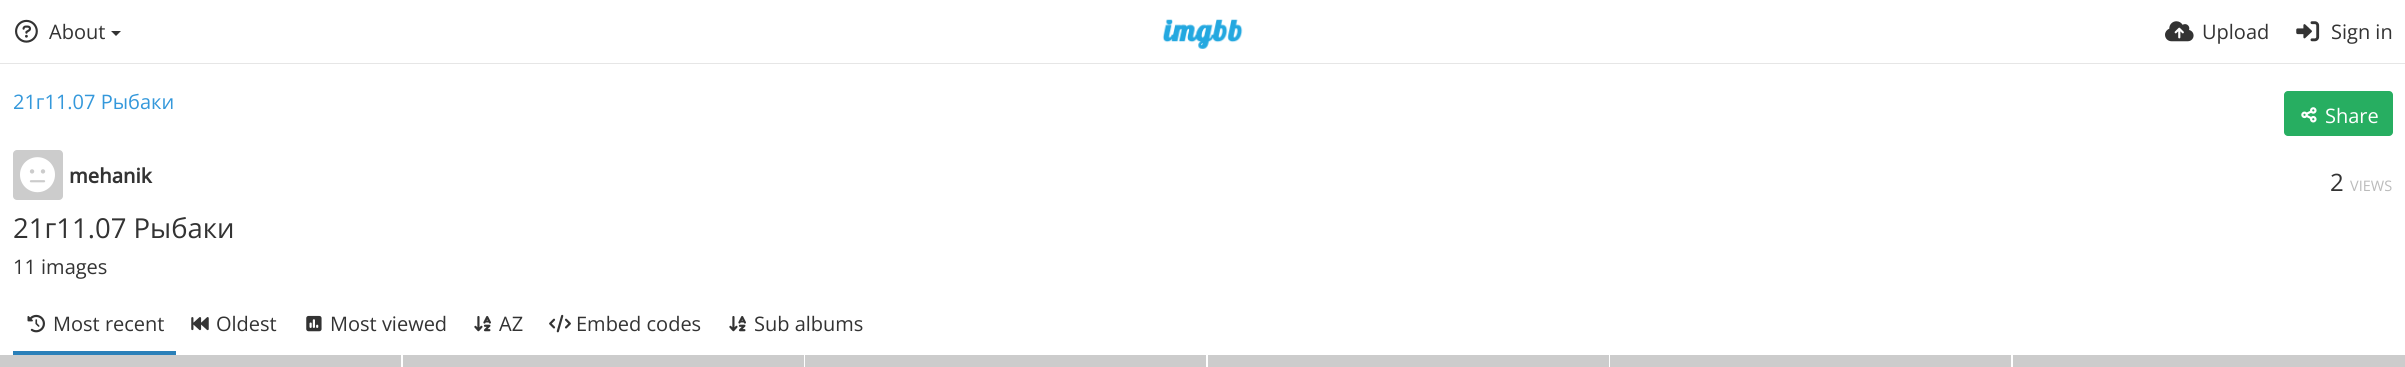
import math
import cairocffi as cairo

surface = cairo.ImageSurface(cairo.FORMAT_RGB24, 2405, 367)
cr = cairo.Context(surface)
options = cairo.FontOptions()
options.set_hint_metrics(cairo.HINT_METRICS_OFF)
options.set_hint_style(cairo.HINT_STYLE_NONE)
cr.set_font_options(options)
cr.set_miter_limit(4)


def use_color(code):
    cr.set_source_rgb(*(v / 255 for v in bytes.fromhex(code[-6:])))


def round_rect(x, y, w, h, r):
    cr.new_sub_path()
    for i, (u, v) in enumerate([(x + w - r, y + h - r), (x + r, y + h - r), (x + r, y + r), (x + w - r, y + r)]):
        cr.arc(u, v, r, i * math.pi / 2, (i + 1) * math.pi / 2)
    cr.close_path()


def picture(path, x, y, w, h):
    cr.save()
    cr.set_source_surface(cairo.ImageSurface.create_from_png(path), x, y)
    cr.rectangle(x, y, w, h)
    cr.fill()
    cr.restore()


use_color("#ffffff")
cr.paint()
picture("img1.png", 15, 19, 23, 24)
cr.select_font_face("Open Sans")
cr.set_font_size(20)
use_color("#333333")
cr.move_to(49, 39)
cr.show_text("About")
cr.new_path()
cr.move_to(111, 31)
cr.line_to(121, 31)
cr.line_to(116, 36)
cr.close_path()
cr.fill()
picture("img2.png", 1162, 19, 81, 30)
picture("img3.png", 2165, 21, 29, 21)
cr.move_to(2202, 39)
cr.show_text("Upload")
picture("img4.png", 2296, 21, 24, 21)
cr.move_to(2331, 39)
cr.show_text("Sign in")
use_color("#e6e6e6")
cr.rectangle(0, 63, 2405, 1)
cr.fill()
use_color("#3498db")
cr.move_to(13, 109)
cr.show_text("21г11.07 Рыбаки")
use_color("#27ae61")
round_rect(2284, 91, 109, 45, 4)
cr.fill()
picture("img5.png", 2301, 107, 16, 16)
use_color("#ffffff")
cr.move_to(2325, 123)
cr.show_text("Share")
use_color("#cccccc")
round_rect(13, 150, 50, 50, 4)
cr.fill()
picture("img6.png", 20, 157, 35, 36)
cr.select_font_face("Open Sans", cairo.FONT_SLANT_NORMAL, cairo.FONT_WEIGHT_BOLD)
use_color("#333333")
cr.move_to(69, 183)
cr.show_text("mehanik")
cr.select_font_face("Open Sans")
cr.set_font_size(24)
cr.move_to(2330, 191)
cr.show_text("2")
cr.set_font_size(14.5)
use_color("#bbbbbb")
cr.move_to(2350, 191)
cr.show_text("VIEWS")
cr.set_font_size(27.5)
use_color("#333333")
cr.move_to(13, 238)
cr.show_text("21г11.07 Рыбаки")
cr.set_font_size(20)
cr.move_to(13, 274)
cr.show_text("11 images")
use_color("#2a80b9")
cr.rectangle(13, 351, 163, 4)
cr.fill()
picture("img7.png", 27, 314, 18, 19)
use_color("#333333")
cr.move_to(53, 331)
cr.show_text("Most recent")
picture("img8.png", 191, 317, 18, 14)
cr.move_to(216, 331)
cr.show_text("Oldest")
picture("img9.png", 306, 315, 16, 17)
cr.move_to(330, 331)
cr.show_text("Most viewed")
picture("img10.png", 474, 316, 17, 16)
cr.move_to(499, 331)
cr.show_text("AZ")
picture("img11.png", 549, 314, 22, 19)
cr.move_to(576, 331)
cr.show_text("Embed codes")
picture("img10.png", 729, 316, 17, 16)
cr.move_to(754, 331)
cr.show_text("Sub albums")
use_color("#cccccc")
cr.rectangle(0, 355, 401, 12)
cr.fill()
cr.rectangle(403, 355, 401, 12)
cr.fill()
cr.rectangle(805, 355, 401, 12)
cr.fill()
cr.rectangle(1208, 355, 401, 12)
cr.fill()
cr.rectangle(1610, 355, 401, 12)
cr.fill()
cr.rectangle(2013, 355, 392, 12)
cr.fill()
surface.write_to_png("result.png")
